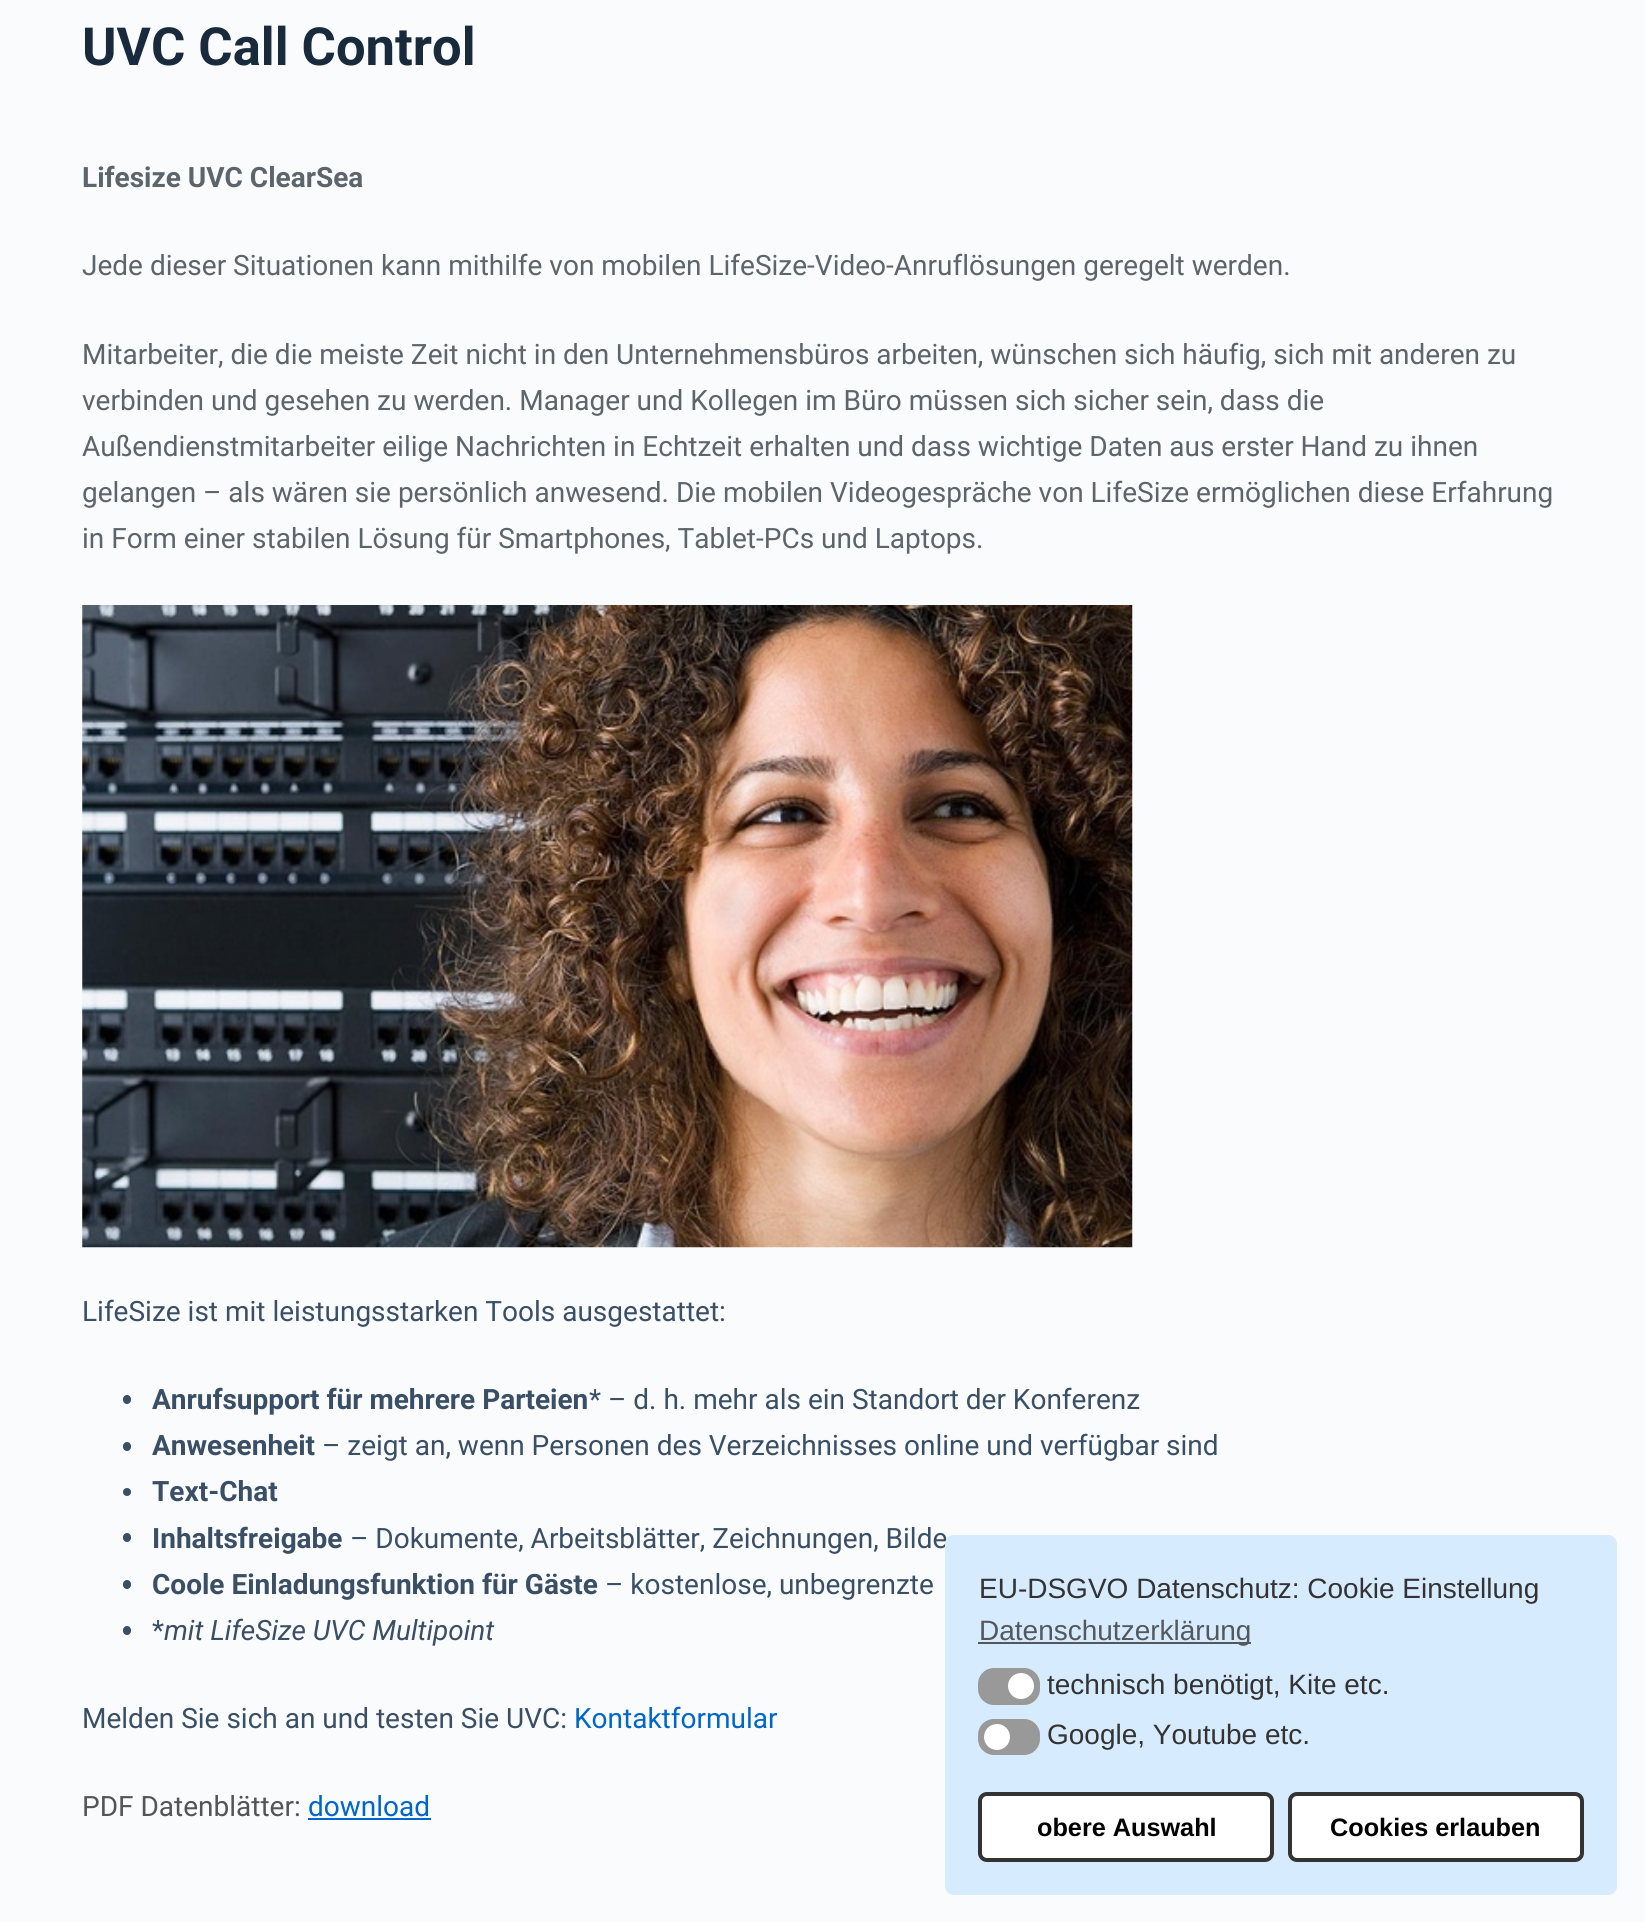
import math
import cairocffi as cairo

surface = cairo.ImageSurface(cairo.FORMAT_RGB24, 1645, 1922)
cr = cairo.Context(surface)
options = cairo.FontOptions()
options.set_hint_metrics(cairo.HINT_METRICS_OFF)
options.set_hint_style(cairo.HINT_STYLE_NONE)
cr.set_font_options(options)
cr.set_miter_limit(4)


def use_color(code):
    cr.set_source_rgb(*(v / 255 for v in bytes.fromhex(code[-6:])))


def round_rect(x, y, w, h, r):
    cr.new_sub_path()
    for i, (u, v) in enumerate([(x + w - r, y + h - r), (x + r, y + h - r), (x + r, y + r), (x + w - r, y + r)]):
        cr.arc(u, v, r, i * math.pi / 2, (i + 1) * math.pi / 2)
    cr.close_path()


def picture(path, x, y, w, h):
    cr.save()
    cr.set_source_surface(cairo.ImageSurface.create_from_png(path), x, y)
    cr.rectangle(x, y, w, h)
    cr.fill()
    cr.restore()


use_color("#fafbfc")
cr.paint()
cr.select_font_face("Roboto", cairo.FONT_SLANT_NORMAL, cairo.FONT_WEIGHT_BOLD)
cr.set_font_size(52.5)
use_color("#192a3d")
cr.move_to(82, 65)
cr.show_text("UVC Call Control")
cr.set_font_size(28)
use_color("#5c646c")
cr.move_to(82, 187)
cr.show_text("Lifesize UVC ClearSea")
cr.select_font_face("Roboto")
cr.move_to(82, 275)
cr.show_text("Jede dieser Situationen kann mithilfe von mobilen LifeSize-Video-Anruflösungen geregelt werden.")
cr.move_to(82, 364)
cr.show_text("Mitarbeiter, die die meiste Zeit nicht in den Unternehmensbüros arbeiten, wünschen sich häufig, sich mit anderen zu")
cr.move_to(82, 410)
cr.show_text("verbinden und gesehen zu werden. Manager und Kollegen im Büro müssen sich sicher sein, dass die")
cr.move_to(82, 456)
cr.show_text("Außendienstmitarbeiter eilige Nachrichten in Echtzeit erhalten und dass wichtige Daten aus erster Hand zu ihnen")
cr.move_to(82, 502)
cr.show_text("gelangen – als wären sie persönlich anwesend. Die mobilen Videogespräche von LifeSize ermöglichen diese Erfahrung")
cr.move_to(82, 548)
cr.show_text("in Form einer stabilen Lösung für Smartphones, Tablet-PCs und Laptops.")
picture("img1.png", 82, 605, 1051, 643)
use_color("#3a4f66")
cr.move_to(82, 1321)
cr.show_text("LifeSize ist mit leistungsstarken Tools ausgestattet:")
round_rect(123, 1395, 8, 9, 4)
cr.fill()
cr.select_font_face("Roboto", cairo.FONT_SLANT_NORMAL, cairo.FONT_WEIGHT_BOLD)
cr.move_to(152, 1409)
cr.show_text("Anrufsupport für mehrere Parteien")
cr.select_font_face("Roboto")
cr.move_to(589, 1409)
cr.show_text("* – d. h. mehr als ein Standort der Konferenz")
round_rect(123, 1442, 8, 9, 4)
cr.fill()
cr.select_font_face("Roboto", cairo.FONT_SLANT_NORMAL, cairo.FONT_WEIGHT_BOLD)
cr.move_to(152, 1455)
cr.show_text("Anwesenheit")
cr.select_font_face("Roboto")
cr.move_to(322, 1455)
cr.show_text("– zeigt an, wenn Personen des Verzeichnisses online und verfügbar sind")
cr.new_path()
cr.arc(127, 1492, 4, 0, 2 * math.pi)
cr.fill()
cr.select_font_face("Roboto", cairo.FONT_SLANT_NORMAL, cairo.FONT_WEIGHT_BOLD)
cr.move_to(152, 1501)
cr.show_text("Text-Chat")
round_rect(123, 1533, 8, 9, 4)
cr.fill()
cr.move_to(152, 1548)
cr.show_text("Inhaltsfreigabe")
cr.select_font_face("Roboto")
cr.move_to(350, 1548)
cr.show_text("– Dokumente, Arbeitsblätter, Zeichnungen, Bilde")
round_rect(123, 1580, 8, 9, 4)
cr.fill()
cr.select_font_face("Roboto", cairo.FONT_SLANT_NORMAL, cairo.FONT_WEIGHT_BOLD)
cr.move_to(152, 1594)
cr.show_text("Coole Einladungsfunktion für Gäste")
cr.select_font_face("Roboto")
cr.move_to(605, 1594)
cr.show_text("– kostenlose, unbegrenzte")
round_rect(123, 1626, 8, 9, 4)
cr.fill()
cr.move_to(152, 1640)
cr.show_text("*")
cr.select_font_face("Roboto", cairo.FONT_SLANT_ITALIC)
cr.move_to(164, 1640)
cr.show_text("mit LifeSize UVC Multipoint")
cr.select_font_face("Roboto")
cr.move_to(82, 1728)
cr.show_text("Melden Sie sich an und testen Sie UVC:")
use_color("#0066cc")
cr.move_to(574, 1728)
cr.show_text("Kontaktformular")
use_color("#555555")
cr.move_to(82, 1816)
cr.show_text("PDF Datenblätter:")
use_color("#0066cc")
cr.move_to(308, 1816)
cr.show_text("download")
cr.rectangle(308, 1818, 123, 2)
cr.fill()
use_color("#d7ebff")
round_rect(945, 1535, 672, 360, 9)
cr.fill()
cr.select_font_face("Liberation Sans")
use_color("#333333")
cr.move_to(979, 1598)
cr.show_text("EU-DSGVO Datenschutz: Cookie Einstellung")
use_color("#54585c")
cr.rectangle(978, 1642, 273, 2)
cr.fill()
cr.move_to(979, 1640)
cr.show_text("Datenschutzerklärung")
use_color("#999999")
round_rect(978, 1668, 62, 37, 16)
cr.fill()
use_color("#ffffff")
cr.arc(1021, 1686, 13, 0, 2 * math.pi)
cr.fill()
use_color("#333333")
cr.move_to(1047, 1694)
cr.show_text("technisch benötigt, Kite etc.")
use_color("#999999")
round_rect(978, 1719, 62, 36, 16)
cr.fill()
use_color("#ffffff")
cr.arc(997, 1737, 13, 0, 2 * math.pi)
cr.fill()
use_color("#333333")
cr.move_to(1047, 1744)
cr.show_text("Google, Youtube etc.")
use_color("#ffffff")
round_rect(980, 1794, 292, 66, 7)
cr.fill_preserve()
use_color("#333333")
cr.set_line_width(4)
cr.stroke()
cr.select_font_face("Liberation Sans", cairo.FONT_SLANT_NORMAL, cairo.FONT_WEIGHT_BOLD)
cr.set_font_size(25.25)
use_color("#000000")
cr.move_to(1037, 1836)
cr.show_text("obere Auswahl")
use_color("#ffffff")
round_rect(1290, 1794, 292, 66, 7)
cr.fill_preserve()
use_color("#333333")
cr.stroke()
use_color("#000000")
cr.move_to(1330, 1836)
cr.show_text("Cookies erlauben")
surface.write_to_png("result.png")
